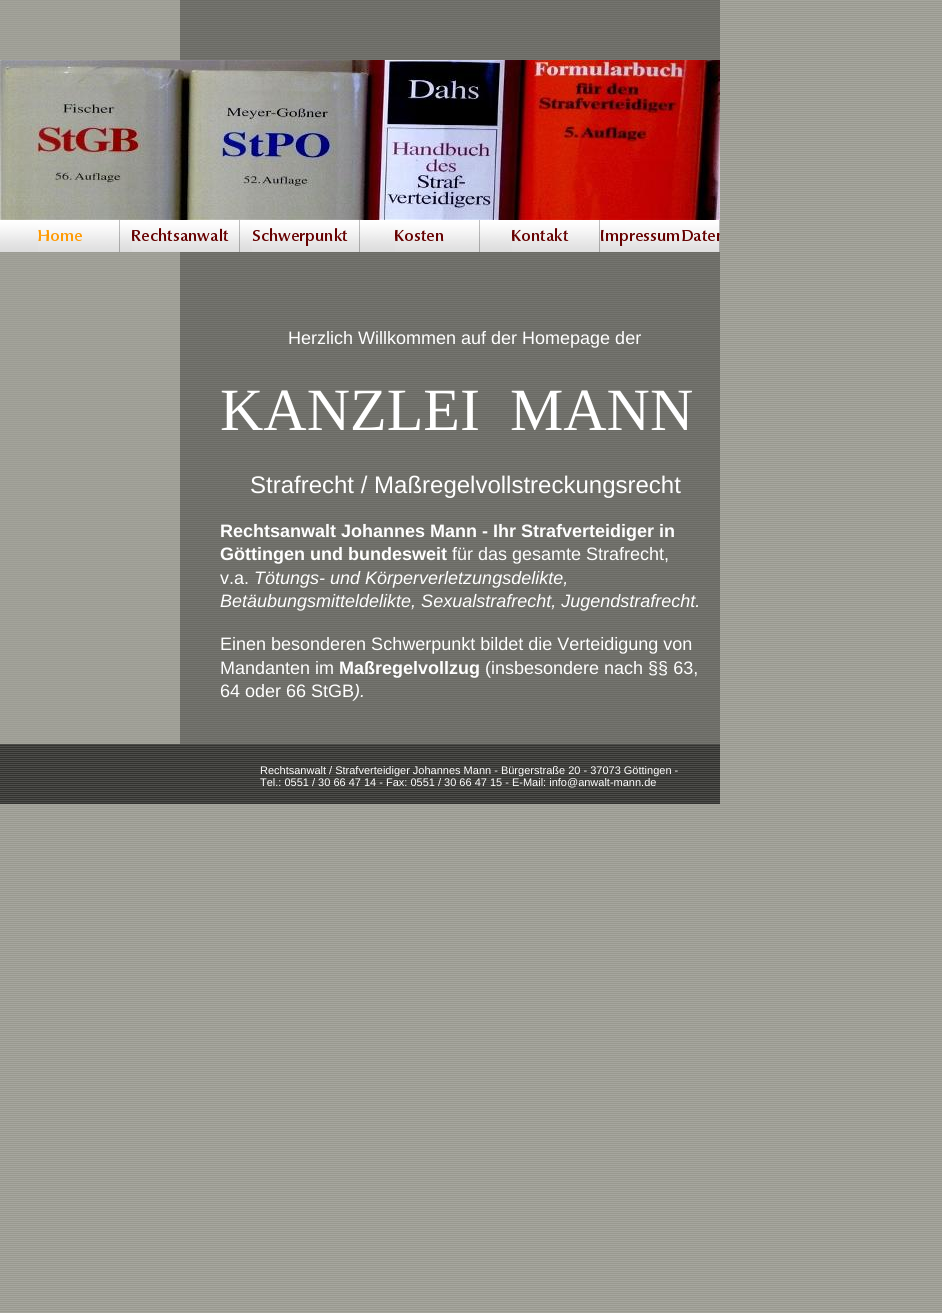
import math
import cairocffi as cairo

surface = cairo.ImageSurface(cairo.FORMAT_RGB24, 942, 1313)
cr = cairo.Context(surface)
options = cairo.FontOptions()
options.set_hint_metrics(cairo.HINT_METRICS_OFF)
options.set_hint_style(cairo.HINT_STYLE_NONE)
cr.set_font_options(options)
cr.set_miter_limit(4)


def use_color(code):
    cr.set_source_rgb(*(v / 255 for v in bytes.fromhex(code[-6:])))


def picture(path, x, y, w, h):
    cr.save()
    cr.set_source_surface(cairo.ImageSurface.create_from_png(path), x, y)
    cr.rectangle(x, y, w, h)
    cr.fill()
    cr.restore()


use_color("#ffffff")
cr.paint()
picture("img1.png", 0, 0, 942, 1313)
picture("img2.png", 0, 0, 720, 744)
picture("img3.png", 0, 60, 720, 160)
picture("img4.png", 0, 220, 601, 32)
picture("img5.png", 38, 220, 82, 32)
picture("img6.png", 132, 220, 108, 32)
picture("img7.png", 252, 220, 108, 32)
picture("img8.png", 395, 220, 85, 32)
picture("img9.png", 512, 220, 88, 32)
picture("img10.png", 601, 220, 119, 32)
cr.select_font_face("Liberation Sans")
cr.set_font_size(18)
use_color("#ffffff")
cr.move_to(288, 344)
cr.show_text("Herzlich Willkommen auf der Homepage der")
cr.select_font_face("Liberation Serif")
cr.set_font_size(60)
cr.move_to(220, 430)
cr.show_text("KANZLEI  MANN")
cr.select_font_face("Liberation Sans")
cr.set_font_size(24)
cr.move_to(250, 493)
cr.show_text("Strafrecht / Maßregelvollstreckungsrecht")
cr.select_font_face("Liberation Sans", cairo.FONT_SLANT_NORMAL, cairo.FONT_WEIGHT_BOLD)
cr.set_font_size(18)
cr.move_to(220, 537)
cr.show_text("Rechtsanwalt Johannes Mann - Ihr Strafverteidiger in")
cr.move_to(220, 560)
cr.show_text("Göttingen und bundesweit")
cr.select_font_face("Liberation Sans")
cr.move_to(452, 560)
cr.show_text("für das gesamte Strafrecht,")
cr.move_to(220, 584)
cr.show_text("v.a.")
cr.select_font_face("Liberation Sans", cairo.FONT_SLANT_ITALIC)
cr.move_to(254, 584)
cr.show_text("Tötungs- und Körperverletzungsdelikte,")
cr.move_to(220, 607)
cr.show_text("Betäubungsmitteldelikte, Sexualstrafrecht, Jugendstrafrecht.")
cr.select_font_face("Liberation Sans")
cr.move_to(220, 650)
cr.show_text("Einen besonderen Schwerpunkt bildet die Verteidigung von")
cr.move_to(220, 674)
cr.show_text("Mandanten im")
cr.select_font_face("Liberation Sans", cairo.FONT_SLANT_NORMAL, cairo.FONT_WEIGHT_BOLD)
cr.move_to(339, 674)
cr.show_text("Maßregelvollzug")
cr.select_font_face("Liberation Sans")
cr.move_to(485, 674)
cr.show_text("(insbesondere nach §§ 63,")
cr.move_to(220, 697)
cr.show_text("64 oder 66 StGB")
cr.select_font_face("Liberation Sans", cairo.FONT_SLANT_ITALIC)
cr.move_to(354, 697)
cr.show_text(").")
picture("img11.png", 0, 744, 720, 60)
cr.select_font_face("Liberation Sans")
cr.set_font_size(11)
cr.move_to(260, 774)
cr.show_text("Rechtsanwalt / Strafverteidiger Johannes Mann - Bürgerstraße 20 - 37073 Göttingen -")
cr.move_to(260, 786)
cr.show_text("Tel.: 0551 / 30 66 47 14 - Fax: 0551 / 30 66 47 15 - E-Mail: info@anwalt-mann.de")
surface.write_to_png("result.png")
